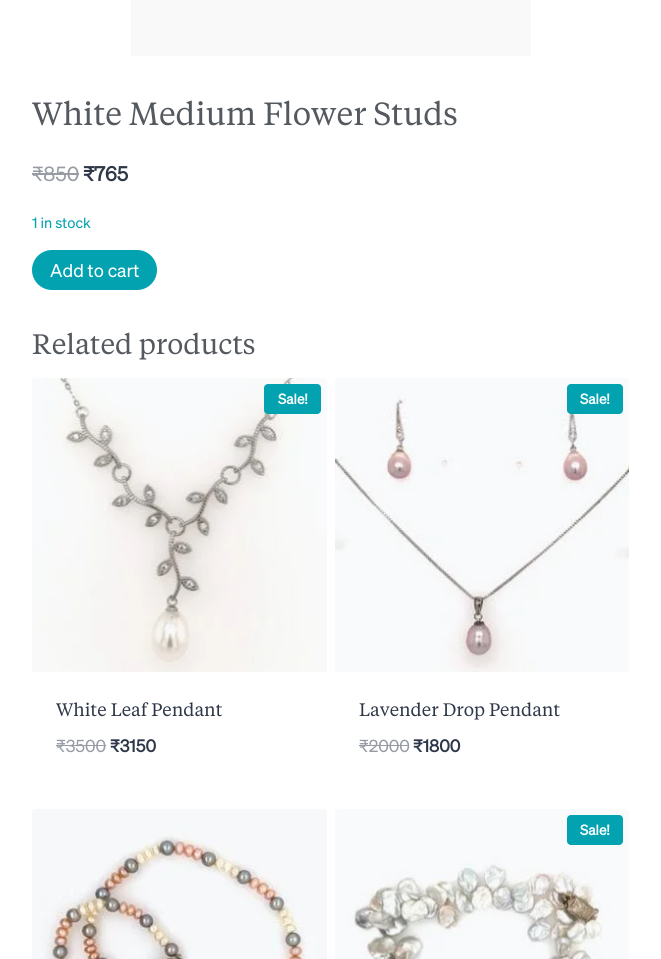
import math
import cairocffi as cairo

surface = cairo.ImageSurface(cairo.FORMAT_RGB24, 661, 959)
cr = cairo.Context(surface)
options = cairo.FontOptions()
options.set_hint_metrics(cairo.HINT_METRICS_OFF)
options.set_hint_style(cairo.HINT_STYLE_NONE)
cr.set_font_options(options)
cr.set_miter_limit(4)


def use_color(code):
    cr.set_source_rgb(*(v / 255 for v in bytes.fromhex(code[-6:])))


def round_rect(x, y, w, h, r):
    cr.new_sub_path()
    for i, (u, v) in enumerate([(x + w - r, y + h - r), (x + r, y + h - r), (x + r, y + r), (x + w - r, y + r)]):
        cr.arc(u, v, r, i * math.pi / 2, (i + 1) * math.pi / 2)
    cr.close_path()


def picture(path, x, y, w, h):
    cr.save()
    cr.set_source_surface(cairo.ImageSurface.create_from_png(path), x, y)
    cr.rectangle(x, y, w, h)
    cr.fill()
    cr.restore()


use_color("#ffffff")
cr.paint()
use_color("#f9f9f9")
cr.rectangle(131, 0, 400, 56)
cr.fill()
cr.select_font_face("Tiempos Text")
cr.set_font_size(32)
use_color("#54595f")
cr.move_to(32, 125)
cr.show_text("White Medium Flower Studs")
cr.select_font_face("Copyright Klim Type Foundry")
cr.set_font_size(20)
use_color("#969ba4")
cr.move_to(32, 181)
cr.show_text("₹850")
cr.rectangle(32, 173, 47, 2)
cr.fill()
cr.select_font_face("Copyright Klim Type Foundry", cairo.FONT_SLANT_NORMAL, cairo.FONT_WEIGHT_BOLD)
use_color("#2d3748")
cr.move_to(83, 181)
cr.show_text("₹765")
cr.select_font_face("Copyright Klim Type Foundry")
cr.set_font_size(14.5)
use_color("#02a2b0")
cr.move_to(32, 228)
cr.show_text("1 in stock")
round_rect(32, 250, 125, 40, 20)
cr.fill()
cr.set_font_size(18)
use_color("#ffffff")
cr.move_to(50, 277)
cr.show_text("Add to cart")
cr.select_font_face("Tiempos Text")
cr.set_font_size(28)
use_color("#54595f")
cr.move_to(32, 354)
cr.show_text("Related products")
picture("img1.png", 32, 378, 295, 294)
use_color("#02a2b0")
round_rect(264, 384, 57, 30, 4)
cr.fill()
cr.select_font_face("Copyright Klim Type Foundry", cairo.FONT_SLANT_NORMAL, cairo.FONT_WEIGHT_BOLD)
cr.set_font_size(14)
use_color("#ffffff")
cr.move_to(278, 404)
cr.show_text("Sale!")
cr.select_font_face("Tiempos Text")
cr.set_font_size(18)
use_color("#2d3748")
cr.move_to(56, 716)
cr.show_text("White Leaf Pendant")
cr.select_font_face("Copyright Klim Type Foundry")
cr.set_font_size(17)
use_color("#969ba4")
cr.move_to(56, 752)
cr.show_text("₹3500")
cr.rectangle(56, 745, 50, 1)
cr.fill()
cr.select_font_face("Copyright Klim Type Foundry", cairo.FONT_SLANT_NORMAL, cairo.FONT_WEIGHT_BOLD)
use_color("#2d3748")
cr.move_to(110, 752)
cr.show_text("₹3150")
picture("img2.png", 335, 378, 294, 294)
use_color("#02a2b0")
round_rect(567, 384, 56, 30, 4)
cr.fill()
cr.set_font_size(14)
use_color("#ffffff")
cr.move_to(580, 404)
cr.show_text("Sale!")
cr.select_font_face("Tiempos Text")
cr.set_font_size(18)
use_color("#2d3748")
cr.move_to(359, 716)
cr.show_text("Lavender Drop Pendant")
cr.select_font_face("Copyright Klim Type Foundry")
cr.set_font_size(17)
use_color("#969ba4")
cr.move_to(359, 752)
cr.show_text("₹2000")
cr.rectangle(359, 745, 50, 1)
cr.fill()
cr.select_font_face("Copyright Klim Type Foundry", cairo.FONT_SLANT_NORMAL, cairo.FONT_WEIGHT_BOLD)
use_color("#2d3748")
cr.move_to(413, 752)
cr.show_text("₹1800")
picture("img3.png", 32, 809, 295, 150)
picture("img4.png", 335, 809, 294, 150)
use_color("#02a2b0")
round_rect(567, 815, 56, 30, 4)
cr.fill()
cr.set_font_size(14)
use_color("#ffffff")
cr.move_to(580, 835)
cr.show_text("Sale!")
surface.write_to_png("result.png")
